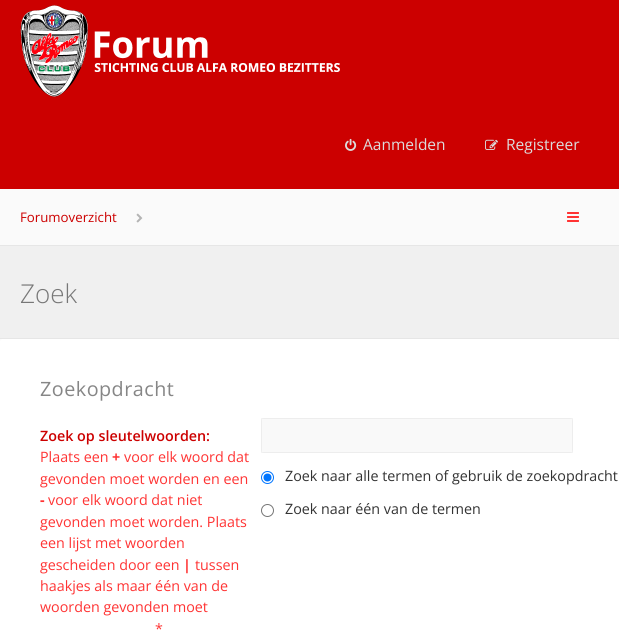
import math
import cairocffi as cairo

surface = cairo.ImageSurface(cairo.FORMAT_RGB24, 619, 631)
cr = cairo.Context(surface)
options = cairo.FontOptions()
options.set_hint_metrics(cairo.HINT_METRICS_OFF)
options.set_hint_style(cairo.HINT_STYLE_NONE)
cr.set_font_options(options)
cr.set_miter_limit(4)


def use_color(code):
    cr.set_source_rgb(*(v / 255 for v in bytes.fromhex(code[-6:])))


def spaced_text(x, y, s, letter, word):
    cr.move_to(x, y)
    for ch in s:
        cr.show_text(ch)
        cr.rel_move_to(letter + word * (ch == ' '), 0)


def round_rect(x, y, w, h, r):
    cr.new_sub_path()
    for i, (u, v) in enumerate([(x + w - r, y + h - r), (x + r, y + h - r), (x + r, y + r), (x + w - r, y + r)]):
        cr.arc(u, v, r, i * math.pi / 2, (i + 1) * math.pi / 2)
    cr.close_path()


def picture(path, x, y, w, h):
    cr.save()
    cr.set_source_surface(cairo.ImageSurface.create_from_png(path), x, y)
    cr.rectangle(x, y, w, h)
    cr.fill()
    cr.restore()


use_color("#fafafa")
cr.paint()
use_color("#cc0000")
cr.rectangle(0, 0, 619, 189)
cr.fill()
picture("img1.png", 20, 5, 320, 92)
picture("img2.png", 345, 138, 12, 13)
cr.select_font_face("Open Sans")
cr.set_font_size(15.5)
use_color("#dcdcdc")
cr.move_to(363, 150)
cr.show_text("Aanmelden")
picture("img3.png", 485, 139, 13, 11)
cr.move_to(506, 150)
cr.show_text("Registreer")
cr.set_font_size(13.25)
use_color("#cc0000")
cr.move_to(20, 222)
cr.show_text("Forumoverzicht")
picture("img4.png", 136, 213, 7, 10)
picture("img5.png", 567, 212, 12, 10)
use_color("#f0f0f0")
cr.rectangle(0, 246, 619, 92)
cr.fill()
use_color("#e6e6e6")
cr.rectangle(0, 245, 619, 1)
cr.fill()
cr.rectangle(0, 338, 619, 1)
cr.fill()
cr.select_font_face("Open Sans Light")
cr.set_font_size(26)
use_color("#777777")
cr.move_to(20, 303)
cr.show_text("Zoek")
use_color("#ffffff")
cr.new_path()
cr.move_to(3, 339)
cr.line_to(616, 339)
cr.curve_to(618, 339, 619, 340, 619, 342)
cr.line_to(619, 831)
cr.curve_to(619, 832, 618, 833, 616, 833)
cr.line_to(3, 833)
cr.curve_to(1, 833, 0, 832, 0, 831)
cr.line_to(0, 342)
cr.curve_to(0, 340, 1, 339, 3, 339)
cr.close_path()
cr.fill()
cr.select_font_face("Open Sans")
cr.set_font_size(19.75)
use_color("#868686")
spaced_text(40, 396, "Zoekopdracht", 0.5, 0)
cr.select_font_face("Open Sans SemiBold")
cr.set_font_size(14.3)
use_color("#cc0000")
cr.move_to(40, 441)
cr.show_text("Zoek op sleutelwoorden:")
cr.select_font_face("Open Sans")
use_color("#ff3333")
cr.move_to(40, 462)
cr.show_text("Plaats een")
cr.select_font_face("Open Sans", cairo.FONT_SLANT_NORMAL, cairo.FONT_WEIGHT_BOLD)
cr.move_to(112, 462)
cr.show_text("+")
cr.select_font_face("Open Sans")
cr.move_to(124, 462)
cr.show_text("voor elk woord dat")
cr.move_to(40, 484)
cr.show_text("gevonden moet worden en een")
cr.select_font_face("Open Sans", cairo.FONT_SLANT_NORMAL, cairo.FONT_WEIGHT_BOLD)
cr.move_to(40, 505)
cr.show_text("-")
cr.select_font_face("Open Sans")
cr.move_to(48, 505)
cr.show_text("voor elk woord dat niet")
cr.move_to(40, 527)
cr.show_text("gevonden moet worden. Plaats")
cr.move_to(40, 548)
cr.show_text("een lijst met woorden")
cr.move_to(40, 570)
cr.show_text("gescheiden door een")
cr.select_font_face("Open Sans", cairo.FONT_SLANT_NORMAL, cairo.FONT_WEIGHT_BOLD)
cr.move_to(183, 570)
cr.show_text("|")
cr.select_font_face("Open Sans")
cr.move_to(195, 570)
cr.show_text("tussen")
cr.move_to(40, 591)
cr.show_text("haakjes als maar één van de")
cr.move_to(40, 612)
cr.show_text("woorden gevonden moet")
cr.move_to(155, 634)
cr.show_text("*")
use_color("#f9f9f9")
round_rect(261, 418, 312, 35, 3)
cr.fill()
cr.rectangle(261.5, 418.5, 311, 34)
cr.set_source_rgba(0, 0, 0, 0.05)
cr.set_line_width(1)
cr.stroke()
cr.arc(267.5, 477.5, 6, 0, 2 * math.pi)
use_color("#0075ff")
cr.stroke()
cr.arc(267.5, 477.5, 4, 0, 2 * math.pi)
cr.fill()
use_color("#333333")
cr.move_to(285, 481)
cr.show_text("Zoek naar alle termen of gebruik de zoekopdracht")
cr.new_path()
cr.arc(267.5, 510.5, 6, 0, 2 * math.pi)
use_color("#767676")
cr.stroke()
use_color("#333333")
cr.move_to(285, 514)
cr.show_text("Zoek naar één van de termen")
surface.write_to_png("result.png")
